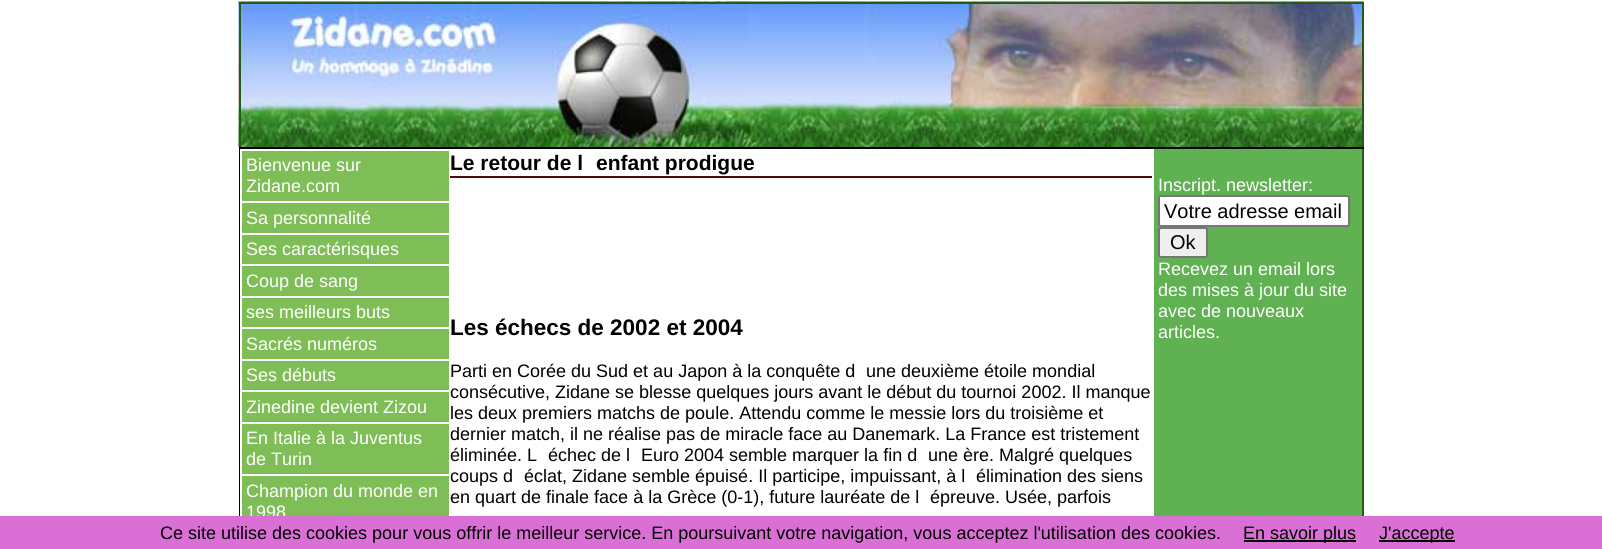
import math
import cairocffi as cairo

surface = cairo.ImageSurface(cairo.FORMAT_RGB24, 1602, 549)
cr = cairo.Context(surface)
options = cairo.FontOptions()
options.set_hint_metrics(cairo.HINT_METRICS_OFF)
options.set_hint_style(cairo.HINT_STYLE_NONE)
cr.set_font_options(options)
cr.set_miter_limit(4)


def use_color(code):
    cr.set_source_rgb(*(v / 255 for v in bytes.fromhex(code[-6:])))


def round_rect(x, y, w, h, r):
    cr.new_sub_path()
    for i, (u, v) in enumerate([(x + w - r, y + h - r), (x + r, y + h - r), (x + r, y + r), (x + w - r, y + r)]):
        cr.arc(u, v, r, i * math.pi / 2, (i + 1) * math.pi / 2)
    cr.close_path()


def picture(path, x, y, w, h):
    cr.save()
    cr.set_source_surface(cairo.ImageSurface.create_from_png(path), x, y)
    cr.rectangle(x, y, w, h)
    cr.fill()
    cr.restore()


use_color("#ffffff")
cr.paint()
picture("img1.png", 238, 1, 1126, 146)
use_color("#235b19")
cr.rectangle(239, 2, 1125, 2)
cr.fill()
cr.rectangle(1362, 2, 2, 145)
cr.fill()
cr.rectangle(239, 2, 2, 145)
cr.fill()
use_color("#000000")
cr.rectangle(239, 147, 1125, 2)
cr.fill()
cr.rectangle(239, 147, 2, 369)
cr.fill()
use_color("#7fbe56")
cr.rectangle(242, 151, 207, 365)
cr.fill()
use_color("#ffffff")
cr.rectangle(240, 149, 1, 367)
cr.fill()
cr.rectangle(242, 201, 207, 2)
cr.fill()
cr.select_font_face("Liberation Sans")
cr.set_font_size(18)
cr.move_to(246, 171)
cr.show_text("Bienvenue sur")
cr.move_to(246, 192)
cr.show_text("Zidane.com")
cr.rectangle(242, 233, 207, 2)
cr.fill()
cr.move_to(246, 224)
cr.show_text("Sa personnalité")
cr.rectangle(242, 264, 207, 2)
cr.fill()
cr.move_to(246, 255)
cr.show_text("Ses caractérisques")
cr.rectangle(242, 296, 207, 2)
cr.fill()
cr.move_to(246, 287)
cr.show_text("Coup de sang")
cr.rectangle(242, 327, 207, 2)
cr.fill()
cr.move_to(246, 318)
cr.show_text("ses meilleurs buts")
cr.rectangle(242, 359, 207, 2)
cr.fill()
cr.move_to(246, 350)
cr.show_text("Sacrés numéros")
cr.rectangle(242, 390, 207, 2)
cr.fill()
cr.move_to(246, 381)
cr.show_text("Ses débuts")
cr.rectangle(242, 422, 207, 2)
cr.fill()
cr.move_to(246, 413)
cr.show_text("Zinedine devient Zizou")
cr.rectangle(242, 474, 207, 2)
cr.fill()
cr.move_to(246, 444)
cr.show_text("En Italie à la Juventus")
cr.move_to(246, 465)
cr.show_text("de Turin")
cr.move_to(246, 497)
cr.show_text("Champion du monde en")
cr.move_to(246, 518)
cr.show_text("1998")
use_color("#4e070b")
cr.rectangle(450, 176, 702, 2)
cr.fill()
cr.select_font_face("Liberation Sans", cairo.FONT_SLANT_NORMAL, cairo.FONT_WEIGHT_BOLD)
cr.set_font_size(21)
use_color("#000000")
cr.move_to(450, 170)
cr.show_text("Le retour de l")
cr.move_to(596, 170)
cr.show_text("enfant prodigue")
cr.set_font_size(22.5)
cr.move_to(450, 335)
cr.show_text("Les échecs de 2002 et 2004")
cr.select_font_face("Liberation Sans")
cr.set_font_size(18)
cr.move_to(450, 377)
cr.show_text("Parti en Corée du Sud et au Japon à la conquête d")
cr.move_to(866, 377)
cr.show_text("une deuxième étoile mondial")
cr.move_to(450, 398)
cr.show_text("consécutive, Zidane se blesse quelques jours avant le début du tournoi 2002. Il manque")
cr.move_to(450, 419)
cr.show_text("les deux premiers matchs de poule. Attendu comme le messie lors du troisième et")
cr.move_to(450, 440)
cr.show_text("dernier match, il ne réalise pas de miracle face au Danemark. La France est tristement")
cr.move_to(450, 461)
cr.show_text("éliminée. L")
cr.move_to(548, 461)
cr.show_text("échec de l")
cr.move_to(641, 461)
cr.show_text("Euro 2004 semble marquer la fin d")
cr.move_to(928, 461)
cr.show_text("une ère. Malgré quelques")
cr.move_to(450, 482)
cr.show_text("coups d")
cr.move_to(524, 482)
cr.show_text("éclat, Zidane semble épuisé. Il participe, impuissant, à l")
cr.move_to(976, 482)
cr.show_text("élimination des siens")
cr.move_to(450, 503)
cr.show_text("en quart de finale face à la Grèce (0-1), future lauréate de l")
cr.move_to(930, 503)
cr.show_text("épreuve. Usée, parfois")
use_color("#60b152")
cr.rectangle(1154, 149, 208, 367)
cr.fill()
use_color("#235b19")
cr.rectangle(1362, 149, 2, 367)
cr.fill()
use_color("#ffffff")
cr.move_to(1158, 191)
cr.show_text("Inscript. newsletter:")
round_rect(1159, 196, 190, 30, 2)
cr.fill_preserve()
use_color("#767676")
cr.stroke()
cr.set_font_size(20)
use_color("#000000")
cr.move_to(1164, 218)
cr.show_text("Votre adresse email")
use_color("#efefef")
round_rect(1159, 228, 48, 29, 2)
cr.fill_preserve()
use_color("#767676")
cr.stroke()
use_color("#000000")
cr.move_to(1170, 249)
cr.show_text("Ok")
cr.set_font_size(18)
use_color("#ffffff")
cr.move_to(1158, 275)
cr.show_text("Recevez un email lors")
cr.move_to(1158, 296)
cr.show_text("des mises à jour du site")
cr.move_to(1158, 317)
cr.show_text("avec de nouveaux")
cr.move_to(1158, 338)
cr.show_text("articles.")
use_color("#da70d6")
cr.rectangle(0, 516, 1602, 33)
cr.fill()
use_color("#000000")
cr.move_to(160, 539)
cr.show_text("Ce site utilise des cookies pour vous offrir le meilleur service. En poursuivant votre navigation, vous acceptez l'utilisation des cookies.")
cr.rectangle(1244, 540, 112, 2)
cr.fill()
cr.move_to(1243, 539)
cr.show_text("En savoir plus")
cr.rectangle(1379, 540, 76, 2)
cr.fill()
cr.move_to(1379, 539)
cr.show_text("J'accepte")
surface.write_to_png("result.png")
